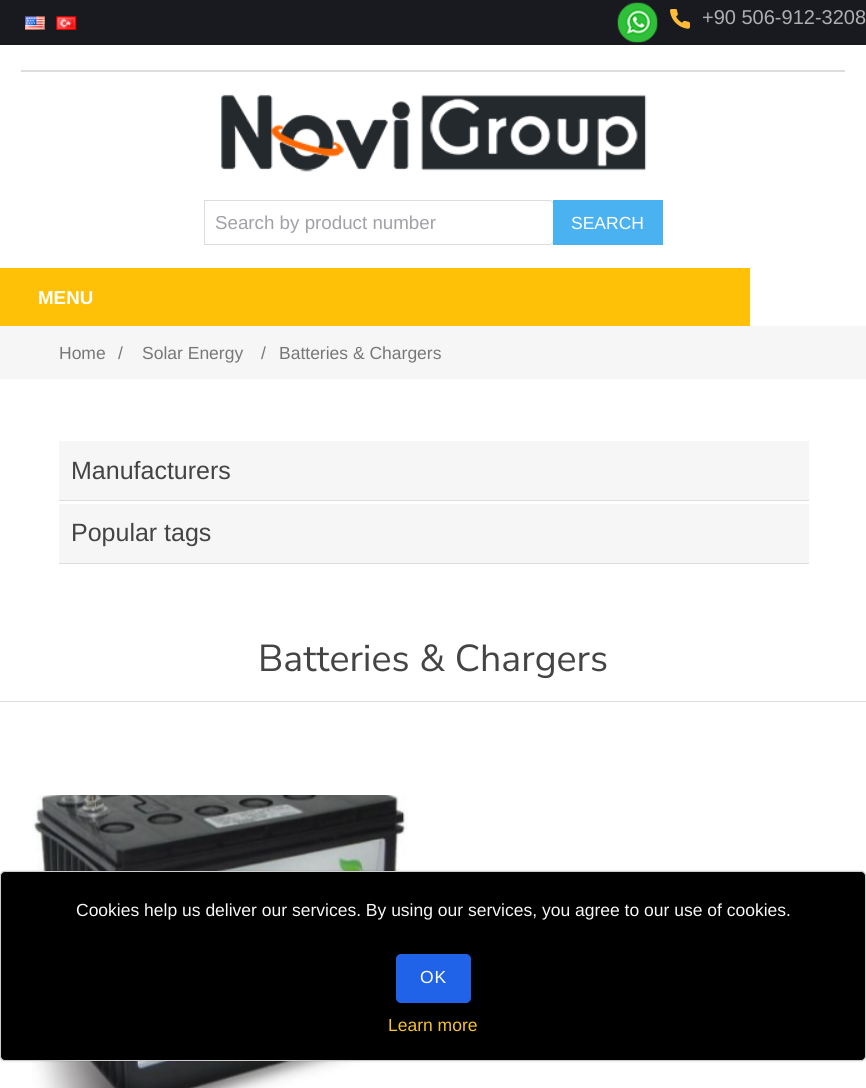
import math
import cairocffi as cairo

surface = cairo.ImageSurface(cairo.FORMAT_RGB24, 866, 1088)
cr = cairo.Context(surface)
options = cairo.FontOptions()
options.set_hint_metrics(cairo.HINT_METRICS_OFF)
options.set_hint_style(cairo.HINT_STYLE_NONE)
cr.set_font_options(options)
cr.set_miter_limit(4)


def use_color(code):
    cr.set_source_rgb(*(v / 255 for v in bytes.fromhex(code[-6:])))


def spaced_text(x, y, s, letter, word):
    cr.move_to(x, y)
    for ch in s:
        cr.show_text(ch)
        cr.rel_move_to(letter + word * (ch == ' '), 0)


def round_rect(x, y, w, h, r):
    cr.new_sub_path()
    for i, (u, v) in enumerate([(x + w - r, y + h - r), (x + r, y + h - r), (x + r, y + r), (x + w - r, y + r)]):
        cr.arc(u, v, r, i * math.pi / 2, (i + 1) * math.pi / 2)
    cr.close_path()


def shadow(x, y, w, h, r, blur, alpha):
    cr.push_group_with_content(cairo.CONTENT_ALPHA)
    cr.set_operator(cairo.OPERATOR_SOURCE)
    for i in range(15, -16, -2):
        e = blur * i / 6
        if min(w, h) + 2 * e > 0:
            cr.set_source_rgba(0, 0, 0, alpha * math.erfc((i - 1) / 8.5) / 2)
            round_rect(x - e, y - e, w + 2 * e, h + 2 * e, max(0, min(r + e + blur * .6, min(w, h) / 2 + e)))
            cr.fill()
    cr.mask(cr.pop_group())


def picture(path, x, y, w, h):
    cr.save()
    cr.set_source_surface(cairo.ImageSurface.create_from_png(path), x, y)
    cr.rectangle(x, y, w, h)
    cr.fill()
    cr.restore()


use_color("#ffffff")
cr.paint()
use_color("#191a1f")
cr.rectangle(0, 0, 866, 45)
cr.fill()
picture("img1.png", 25, 16, 20, 14)
picture("img2.png", 56, 16, 21, 14)
picture("img3.png", 617, 2, 41, 41)
picture("img4.png", 670, 9, 20, 20)
cr.select_font_face("Liberation Sans")
cr.set_font_size(20)
use_color("#afafb1")
cr.move_to(702, 24)
cr.show_text("+90 506-912-3208")
use_color("#dddddd")
cr.rectangle(21, 70, 824, 2)
cr.fill()
picture("img5.png", 221, 94, 426, 78)
cr.new_path()
cr.move_to(204.5, 200.5)
cr.line_to(549, 200.5)
cr.curve_to(551.5, 200.5, 553.5, 202.5, 553.5, 205)
cr.line_to(553.5, 240)
cr.curve_to(553.5, 242.5, 551.5, 244.5, 549, 244.5)
cr.line_to(204.5, 244.5)
cr.close_path()
cr.set_line_width(1)
cr.stroke()
cr.set_font_size(18.75)
use_color("#a1a1a8")
cr.move_to(215, 229)
cr.show_text("Search by product number")
use_color("#4ab2f1")
cr.rectangle(553, 200, 110, 45)
cr.fill()
cr.set_font_size(17.5)
use_color("#ffffff")
cr.move_to(571, 229)
cr.show_text("SEARCH")
use_color("#ffc107")
cr.rectangle(0, 268, 750, 58)
cr.fill()
cr.select_font_face("Liberation Sans", cairo.FONT_SLANT_NORMAL, cairo.FONT_WEIGHT_BOLD)
cr.set_font_size(18.75)
use_color("#ffffff")
cr.move_to(38, 304)
cr.show_text("MENU")
use_color("#f6f6f6")
cr.rectangle(0, 326, 866, 53)
cr.fill()
cr.select_font_face("Liberation Sans")
cr.set_font_size(17.5)
use_color("#777777")
cr.move_to(59, 359)
cr.show_text("Home")
cr.move_to(118, 359)
cr.show_text("/")
cr.move_to(142, 359)
cr.show_text("Solar Energy")
cr.move_to(261, 359)
cr.show_text("/")
cr.move_to(279, 359)
cr.show_text("Batteries & Chargers")
use_color("#f6f6f6")
cr.rectangle(59, 441, 750, 59)
cr.fill()
use_color("#dddddd")
cr.rectangle(59, 500, 750, 1)
cr.fill()
cr.set_font_size(25)
use_color("#444444")
cr.move_to(71, 479)
cr.show_text("Manufacturers")
use_color("#f6f6f6")
cr.rectangle(59, 504, 750, 59)
cr.fill()
use_color("#dddddd")
cr.rectangle(59, 563, 750, 1)
cr.fill()
use_color("#444444")
cr.move_to(71, 541)
cr.show_text("Popular tags")
use_color("#dddddd")
cr.rectangle(0, 701, 866, 1)
cr.fill()
cr.select_font_face("Nunito Sans")
cr.set_font_size(37.5)
use_color("#444444")
cr.move_to(258, 671)
cr.show_text("Batteries & Chargers")
picture("img6.png", 32, 795, 376, 293)
use_color("#000000")
shadow(0, 871, 866, 190, 5, 1, 0.15)
use_color("#000000")
round_rect(0.5, 871.5, 865, 189, 4.5)
cr.fill_preserve()
use_color("#cccccc")
cr.stroke()
cr.select_font_face("Liberation Sans")
cr.set_font_size(17.5)
use_color("#f7f8f9")
cr.move_to(76, 916)
cr.show_text("Cookies help us deliver our services. By using our services, you agree to our use of cookies.")
use_color("#2163e8")
round_rect(396.5, 954.5, 74, 48, 4.5)
cr.fill_preserve()
cr.stroke()
use_color("#ffffff")
spaced_text(420, 983, "OK", 1, 0)
use_color("#f7c32e")
cr.move_to(388, 1031)
cr.show_text("Learn more")
surface.write_to_png("result.png")
